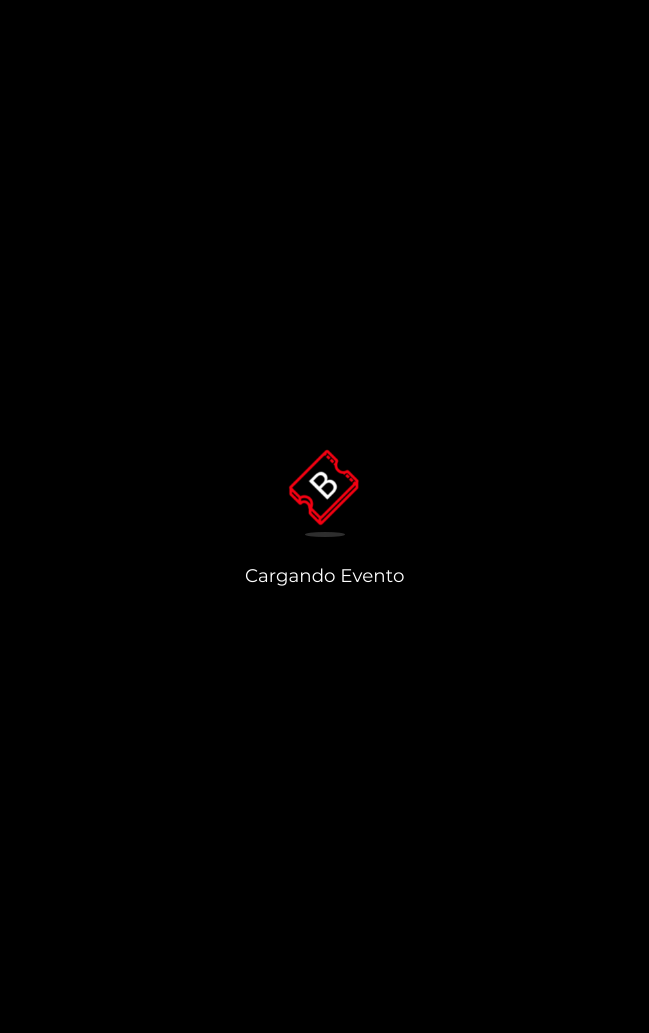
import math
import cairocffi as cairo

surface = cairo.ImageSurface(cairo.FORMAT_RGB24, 649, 1033)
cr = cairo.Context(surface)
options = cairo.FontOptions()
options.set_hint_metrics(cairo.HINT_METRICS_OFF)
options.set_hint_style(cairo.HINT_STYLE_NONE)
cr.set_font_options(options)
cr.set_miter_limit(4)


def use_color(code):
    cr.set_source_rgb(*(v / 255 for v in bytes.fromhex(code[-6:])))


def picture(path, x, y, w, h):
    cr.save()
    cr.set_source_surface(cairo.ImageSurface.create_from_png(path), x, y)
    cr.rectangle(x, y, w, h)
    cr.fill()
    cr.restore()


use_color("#000000")
cr.paint()
picture("img1.png", 288, 449, 71, 77)
use_color("#2e2e2e")
cr.new_path()
cr.move_to(325, 532)
cr.curve_to(336, 532, 345, 533, 345, 534.5)
cr.curve_to(345, 536, 336, 537, 325, 537)
cr.curve_to(314, 537, 305, 536, 305, 534.5)
cr.curve_to(305, 533, 314, 532, 325, 532)
cr.close_path()
cr.fill()
cr.select_font_face("Montserrat Thin")
cr.set_font_size(18.25)
use_color("#ffffff")
cr.move_to(245, 582)
cr.show_text("Cargando Evento")
surface.write_to_png("result.png")
